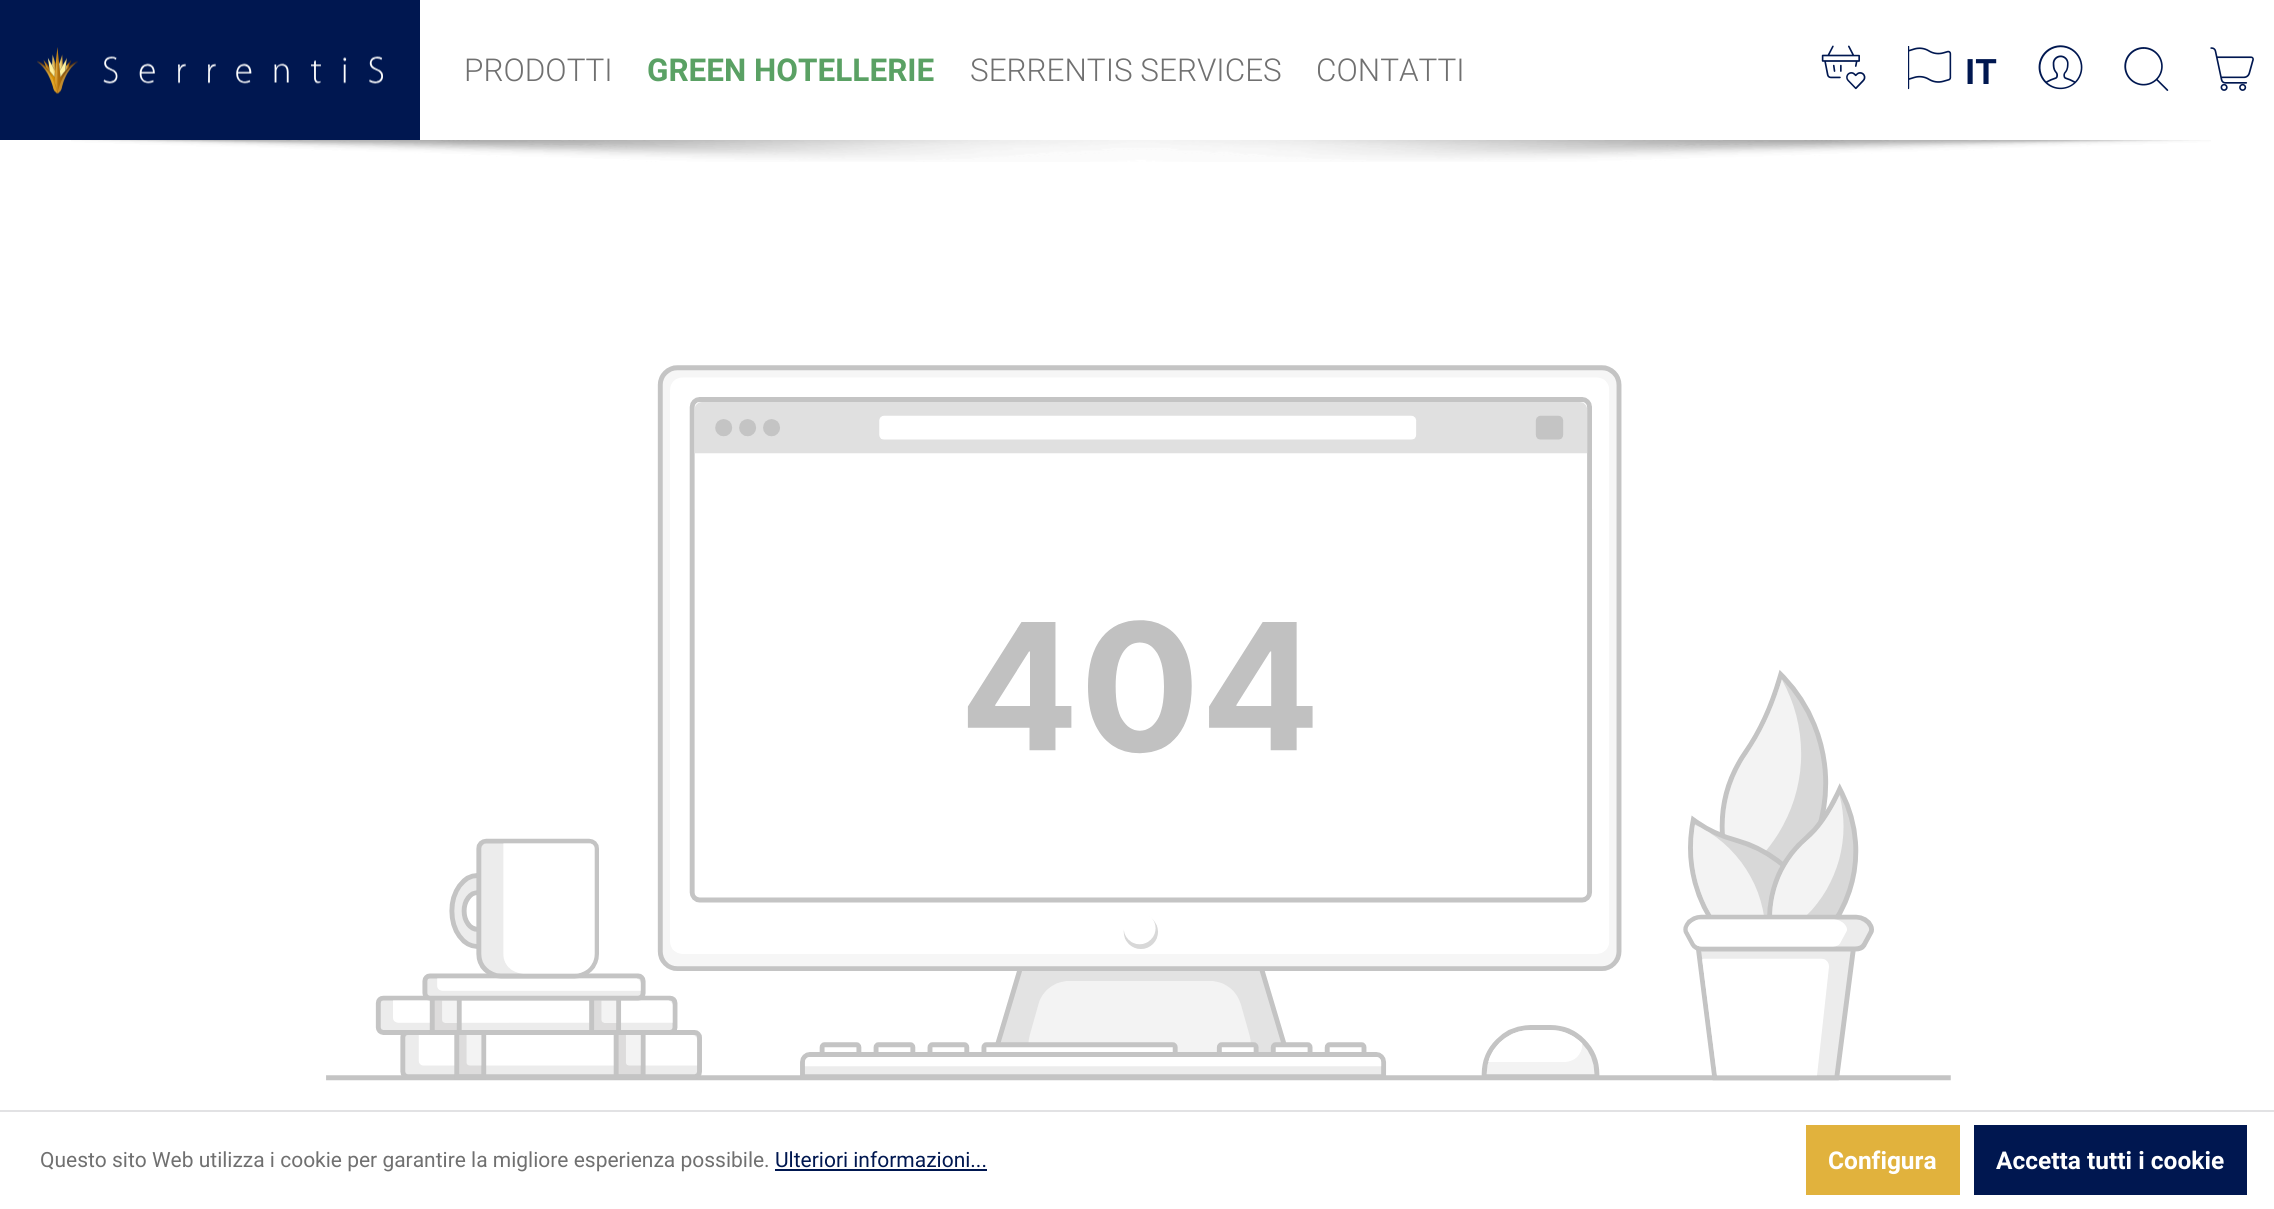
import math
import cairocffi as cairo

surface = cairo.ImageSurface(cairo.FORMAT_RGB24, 2274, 1209)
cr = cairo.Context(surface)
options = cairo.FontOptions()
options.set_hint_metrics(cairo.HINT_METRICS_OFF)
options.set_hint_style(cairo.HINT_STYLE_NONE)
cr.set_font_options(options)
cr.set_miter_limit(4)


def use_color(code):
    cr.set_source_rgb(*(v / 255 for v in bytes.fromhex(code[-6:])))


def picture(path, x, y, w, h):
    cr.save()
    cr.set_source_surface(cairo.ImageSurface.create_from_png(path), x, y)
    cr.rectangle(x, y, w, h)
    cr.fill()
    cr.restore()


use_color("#ffffff")
cr.paint()
use_color("#001750")
cr.rectangle(0, 0, 420, 140)
cr.fill()
picture("img1.png", 37, 47, 346, 47)
cr.select_font_face("Roboto Light")
cr.set_font_size(31.5)
use_color("#707070")
cr.move_to(464, 81)
cr.show_text("PRODOTTI")
cr.select_font_face("Roboto", cairo.FONT_SLANT_NORMAL, cairo.FONT_WEIGHT_BOLD)
use_color("#5aa164")
cr.move_to(647, 81)
cr.show_text("GREEN HOTELLERIE")
cr.select_font_face("Roboto Light")
use_color("#707070")
cr.move_to(970, 81)
cr.show_text("SERRENTIS SERVICES")
cr.move_to(1316, 81)
cr.show_text("CONTATTI")
picture("img2.png", 1821, 45, 45, 45)
picture("img3.png", 1908, 46, 44, 44)
cr.select_font_face("Roboto", cairo.FONT_SLANT_NORMAL, cairo.FONT_WEIGHT_BOLD)
cr.set_font_size(35)
use_color("#001750")
cr.move_to(1965, 84)
cr.show_text("IT")
picture("img4.png", 2038, 45, 45, 45)
picture("img5.png", 2124, 47, 45, 44)
picture("img6.png", 2210, 47, 44, 44)
picture("img7.png", 71, 140, 2140, 22)
picture("img8.png", 326, 365, 1625, 716)
use_color("#e2e2e4")
cr.rectangle(0, 1110, 2274, 2)
cr.fill()
cr.select_font_face("Roboto")
cr.set_font_size(21)
use_color("#707070")
cr.move_to(40, 1167)
cr.show_text("Questo sito Web utilizza i cookie per garantire la migliore esperienza possibile.")
use_color("#001750")
cr.move_to(775, 1167)
cr.show_text("Ulteriori informazioni...")
cr.rectangle(775, 1169, 212, 2)
cr.fill()
use_color("#e1b23d")
cr.rectangle(1806, 1125, 154, 70)
cr.fill()
cr.select_font_face("Roboto", cairo.FONT_SLANT_NORMAL, cairo.FONT_WEIGHT_BOLD)
cr.set_font_size(24.5)
use_color("#ffffff")
cr.move_to(1828, 1169)
cr.show_text("Configura")
use_color("#001750")
cr.rectangle(1974, 1125, 273, 70)
cr.fill()
use_color("#ffffff")
cr.move_to(1996, 1169)
cr.show_text("Accetta tutti i cookie")
surface.write_to_png("result.png")
